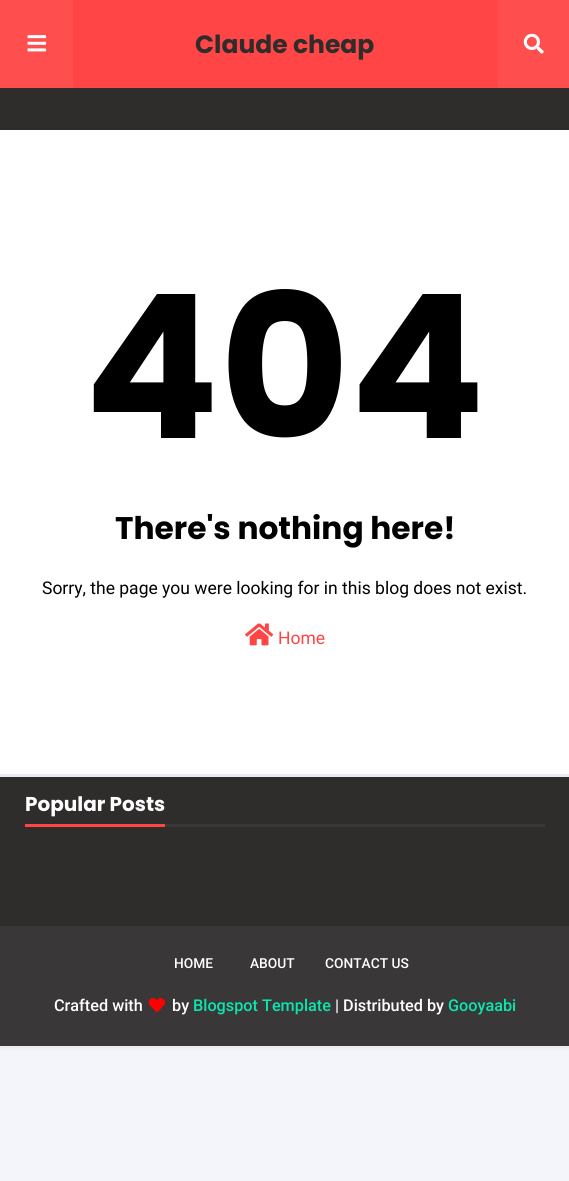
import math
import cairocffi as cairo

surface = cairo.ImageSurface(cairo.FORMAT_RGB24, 569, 1181)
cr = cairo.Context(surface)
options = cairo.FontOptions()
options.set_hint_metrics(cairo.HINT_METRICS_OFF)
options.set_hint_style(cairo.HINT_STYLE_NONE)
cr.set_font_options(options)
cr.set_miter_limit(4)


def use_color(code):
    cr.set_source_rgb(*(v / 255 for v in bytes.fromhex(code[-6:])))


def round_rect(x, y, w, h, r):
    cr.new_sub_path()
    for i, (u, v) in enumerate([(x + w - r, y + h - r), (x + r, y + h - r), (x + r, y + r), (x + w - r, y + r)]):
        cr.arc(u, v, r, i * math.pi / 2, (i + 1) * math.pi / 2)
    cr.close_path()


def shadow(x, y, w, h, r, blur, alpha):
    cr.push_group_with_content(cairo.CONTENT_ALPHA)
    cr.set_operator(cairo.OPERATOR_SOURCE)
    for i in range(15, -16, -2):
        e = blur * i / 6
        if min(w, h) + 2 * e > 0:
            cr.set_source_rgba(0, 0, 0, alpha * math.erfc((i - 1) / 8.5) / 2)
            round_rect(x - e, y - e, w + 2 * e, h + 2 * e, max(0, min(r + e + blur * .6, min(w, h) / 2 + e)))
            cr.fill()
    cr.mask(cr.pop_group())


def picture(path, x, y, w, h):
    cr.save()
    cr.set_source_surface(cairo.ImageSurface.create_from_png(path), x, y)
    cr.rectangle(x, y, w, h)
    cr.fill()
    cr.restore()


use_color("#f4f5fa")
cr.paint()
use_color("#000000")
shadow(0, 0, 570, 1046, 0, 3, 0.1)
use_color("#ffffff")
cr.rectangle(0, 130, 569, 644)
cr.fill()
use_color("#ff4545")
cr.rectangle(73, 0, 425, 88)
cr.fill()
use_color("#ff4e4e")
cr.rectangle(0, 0, 73, 88)
cr.fill()
picture("img1.png", 27, 35, 20, 17)
cr.select_font_face("Poppins", cairo.FONT_SLANT_NORMAL, cairo.FONT_WEIGHT_BOLD)
cr.set_font_size(25)
use_color("#2f2c2c")
cr.move_to(195, 53)
cr.show_text("Claude cheap")
use_color("#ff4e4e")
cr.rectangle(498, 0, 71, 88)
cr.fill()
picture("img2.png", 523, 33, 21, 21)
use_color("#2f2c2c")
cr.rectangle(0, 88, 569, 42)
cr.fill()
cr.set_font_size(200)
use_color("#000000")
cr.move_to(84, 438)
cr.show_text("404")
cr.set_font_size(31.25)
cr.move_to(115, 539)
cr.show_text("There's nothing here!")
cr.select_font_face("Roboto")
cr.set_font_size(17.5)
cr.move_to(42, 594)
cr.show_text("Sorry, the page you were looking for in this blog does not exist.")
picture("img3.png", 245, 623, 29, 23)
use_color("#ff4545")
cr.move_to(278, 644)
cr.show_text("Home")
use_color("#2f2c2c")
cr.rectangle(0, 777, 569, 149)
cr.fill()
use_color("#ebebf3")
cr.rectangle(0, 774, 569, 3)
cr.fill()
use_color("#393737")
cr.rectangle(165, 824, 380, 3)
cr.fill()
cr.select_font_face("Poppins", cairo.FONT_SLANT_NORMAL, cairo.FONT_WEIGHT_BOLD)
cr.set_font_size(20)
use_color("#ffffff")
cr.move_to(25, 811)
cr.show_text("Popular Posts")
use_color("#ff4545")
cr.rectangle(25, 824, 140, 3)
cr.fill()
use_color("#393737")
cr.rectangle(0, 926, 569, 120)
cr.fill()
cr.select_font_face("Roboto Medium")
cr.set_font_size(13.75)
use_color("#ffffff")
cr.move_to(174, 968)
cr.show_text("HOME")
cr.move_to(250, 968)
cr.show_text("ABOUT")
cr.move_to(325, 968)
cr.show_text("CONTACT US")
cr.set_font_size(16.25)
cr.move_to(54, 1011)
cr.show_text("Crafted with")
picture("img4.png", 148, 998, 17, 15)
cr.move_to(172, 1011)
cr.show_text("by")
use_color("#0be6af")
cr.move_to(193, 1011)
cr.show_text("Blogspot Template")
use_color("#ffffff")
cr.move_to(335, 1011)
cr.show_text("| Distributed by")
use_color("#0be6af")
cr.move_to(448, 1011)
cr.show_text("Gooyaabi")
surface.write_to_png("result.png")
